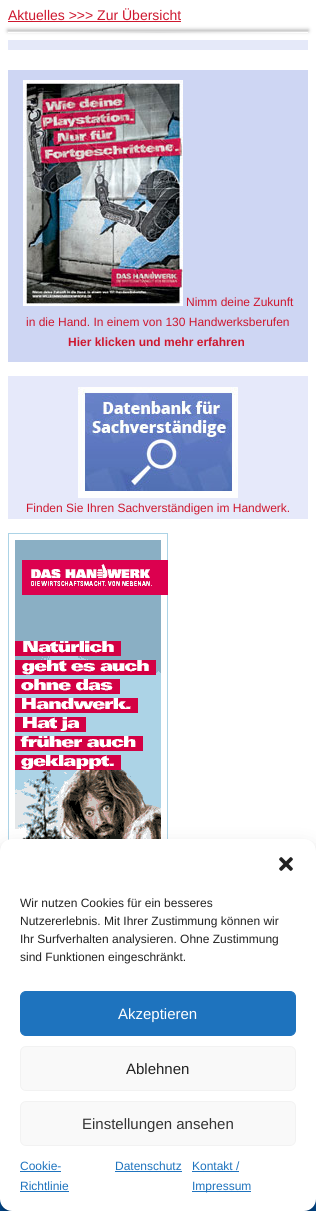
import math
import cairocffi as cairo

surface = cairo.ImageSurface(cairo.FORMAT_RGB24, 316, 1211)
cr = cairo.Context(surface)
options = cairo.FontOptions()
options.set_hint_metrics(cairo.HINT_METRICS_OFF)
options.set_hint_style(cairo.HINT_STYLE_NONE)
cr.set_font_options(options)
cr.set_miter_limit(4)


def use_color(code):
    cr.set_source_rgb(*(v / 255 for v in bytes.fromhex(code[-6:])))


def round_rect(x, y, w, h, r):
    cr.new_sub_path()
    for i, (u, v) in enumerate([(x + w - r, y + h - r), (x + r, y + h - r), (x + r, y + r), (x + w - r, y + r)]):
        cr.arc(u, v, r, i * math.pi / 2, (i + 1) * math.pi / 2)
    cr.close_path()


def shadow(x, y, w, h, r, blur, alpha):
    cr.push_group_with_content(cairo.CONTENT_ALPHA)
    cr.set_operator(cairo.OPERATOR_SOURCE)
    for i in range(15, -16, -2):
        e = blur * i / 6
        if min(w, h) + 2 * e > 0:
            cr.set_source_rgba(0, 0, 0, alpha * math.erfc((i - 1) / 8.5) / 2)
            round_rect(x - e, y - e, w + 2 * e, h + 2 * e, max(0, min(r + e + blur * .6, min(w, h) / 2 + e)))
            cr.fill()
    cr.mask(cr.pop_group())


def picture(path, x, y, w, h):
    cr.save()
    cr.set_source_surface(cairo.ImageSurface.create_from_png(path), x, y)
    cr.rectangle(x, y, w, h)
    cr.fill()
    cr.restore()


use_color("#ffffff")
cr.paint()
cr.select_font_face("Liberation Sans")
cr.set_font_size(14)
use_color("#ce182f")
cr.move_to(8, 20)
cr.show_text("Aktuelles >>> Zur Übersicht")
cr.rectangle(8, 21, 173, 1)
cr.fill()
use_color("#888888")
shadow(8, 30, 300, 1, 0, 2, 0.75)
gradient = cairo.LinearGradient(8, 33, 308, 32)
gradient.add_color_stop_rgba(0, 1, 1, 1, 1)
gradient.add_color_stop_rgba(0.5, 0.882, 0.882, 0.882, 1)
gradient.add_color_stop_rgba(1, 1, 1, 1, 1)
cr.set_source(gradient)
cr.rectangle(8, 32, 300, 1)
cr.fill()
use_color("#e5e9f9")
cr.rectangle(8, 40, 300, 10)
cr.fill()
use_color("#ced6f3")
cr.rectangle(8, 70, 300, 292)
cr.fill()
picture("img1.png", 23, 80, 160, 226)
cr.set_font_size(12)
use_color("#ce182f")
cr.move_to(186, 306)
cr.show_text("Nimm deine Zukunft")
cr.move_to(26, 326)
cr.show_text("in die Hand. In einem von 130 Handwerksberufen")
cr.select_font_face("Liberation Sans", cairo.FONT_SLANT_NORMAL, cairo.FONT_WEIGHT_BOLD)
cr.move_to(68, 346)
cr.show_text("Hier klicken und mehr erfahren")
use_color("#e6e9fa")
cr.rectangle(8, 376, 300, 143)
cr.fill()
picture("img2.png", 78, 387, 160, 111)
cr.select_font_face("Liberation Sans")
use_color("#ce182f")
cr.move_to(26, 512)
cr.show_text("Finden Sie Ihren Sachverständigen im Handwerk.")
picture("img3.png", 8, 533, 160, 307)
gradient = cairo.LinearGradient(158, 1169, 158, 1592)
gradient.add_color_stop_rgba(0.02, 0, 0.314, 0.62, 1)
gradient.add_color_stop_rgba(1, 0, 0.212, 0.42, 1)
cr.set_source(gradient)
cr.rectangle(0, 1199, 316, 12)
cr.fill()
use_color("#000000")
shadow(0, 845, 316, 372, 12, 3, 0.23)
shadow(0, 849, 316, 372, 12, 10, 0.19)
use_color("#ffffff")
round_rect(0, 839, 316, 372, 12)
cr.fill()
picture("img4.png", 279, 857, 14, 14)
use_color("#222222")
cr.move_to(20, 907)
cr.show_text("Wir nutzen Cookies für ein besseres")
cr.move_to(20, 925)
cr.show_text("Nutzererlebnis. Mit Ihrer Zustimmung können wir")
cr.move_to(20, 943)
cr.show_text("Ihr Surfverhalten analysieren. Ohne Zustimmung")
cr.move_to(20, 961)
cr.show_text("sind Funktionen eingeschränkt.")
use_color("#1e73be")
round_rect(20.5, 991.5, 275, 44, 5.5)
cr.fill_preserve()
cr.set_line_width(1)
cr.stroke()
cr.set_font_size(15)
use_color("#ffffff")
cr.move_to(118, 1019)
cr.show_text("Akzeptieren")
use_color("#f9f9f9")
round_rect(20.5, 1046.5, 275, 44, 5.5)
cr.fill_preserve()
use_color("#f2f2f2")
cr.stroke()
use_color("#222222")
cr.move_to(126, 1074)
cr.show_text("Ablehnen")
use_color("#f9f9f9")
round_rect(20.5, 1101.5, 275, 44, 5.5)
cr.fill_preserve()
use_color("#f2f2f2")
cr.stroke()
use_color("#333333")
cr.move_to(82, 1129)
cr.show_text("Einstellungen ansehen")
cr.set_font_size(12)
use_color("#1e73be")
cr.move_to(20, 1170)
cr.show_text("Cookie-")
cr.rectangle(20, 1171, 41, 1)
cr.fill()
cr.move_to(20, 1190)
cr.show_text("Richtlinie")
cr.rectangle(20, 1191, 49, 1)
cr.fill()
cr.move_to(115, 1170)
cr.show_text("Datenschutz")
cr.rectangle(115, 1171, 67, 1)
cr.fill()
cr.move_to(192, 1170)
cr.show_text("Kontakt /")
cr.rectangle(192, 1171, 47, 1)
cr.fill()
cr.rectangle(192, 1191, 59, 1)
cr.fill()
cr.move_to(192, 1190)
cr.show_text("Impressum")
surface.write_to_png("result.png")
